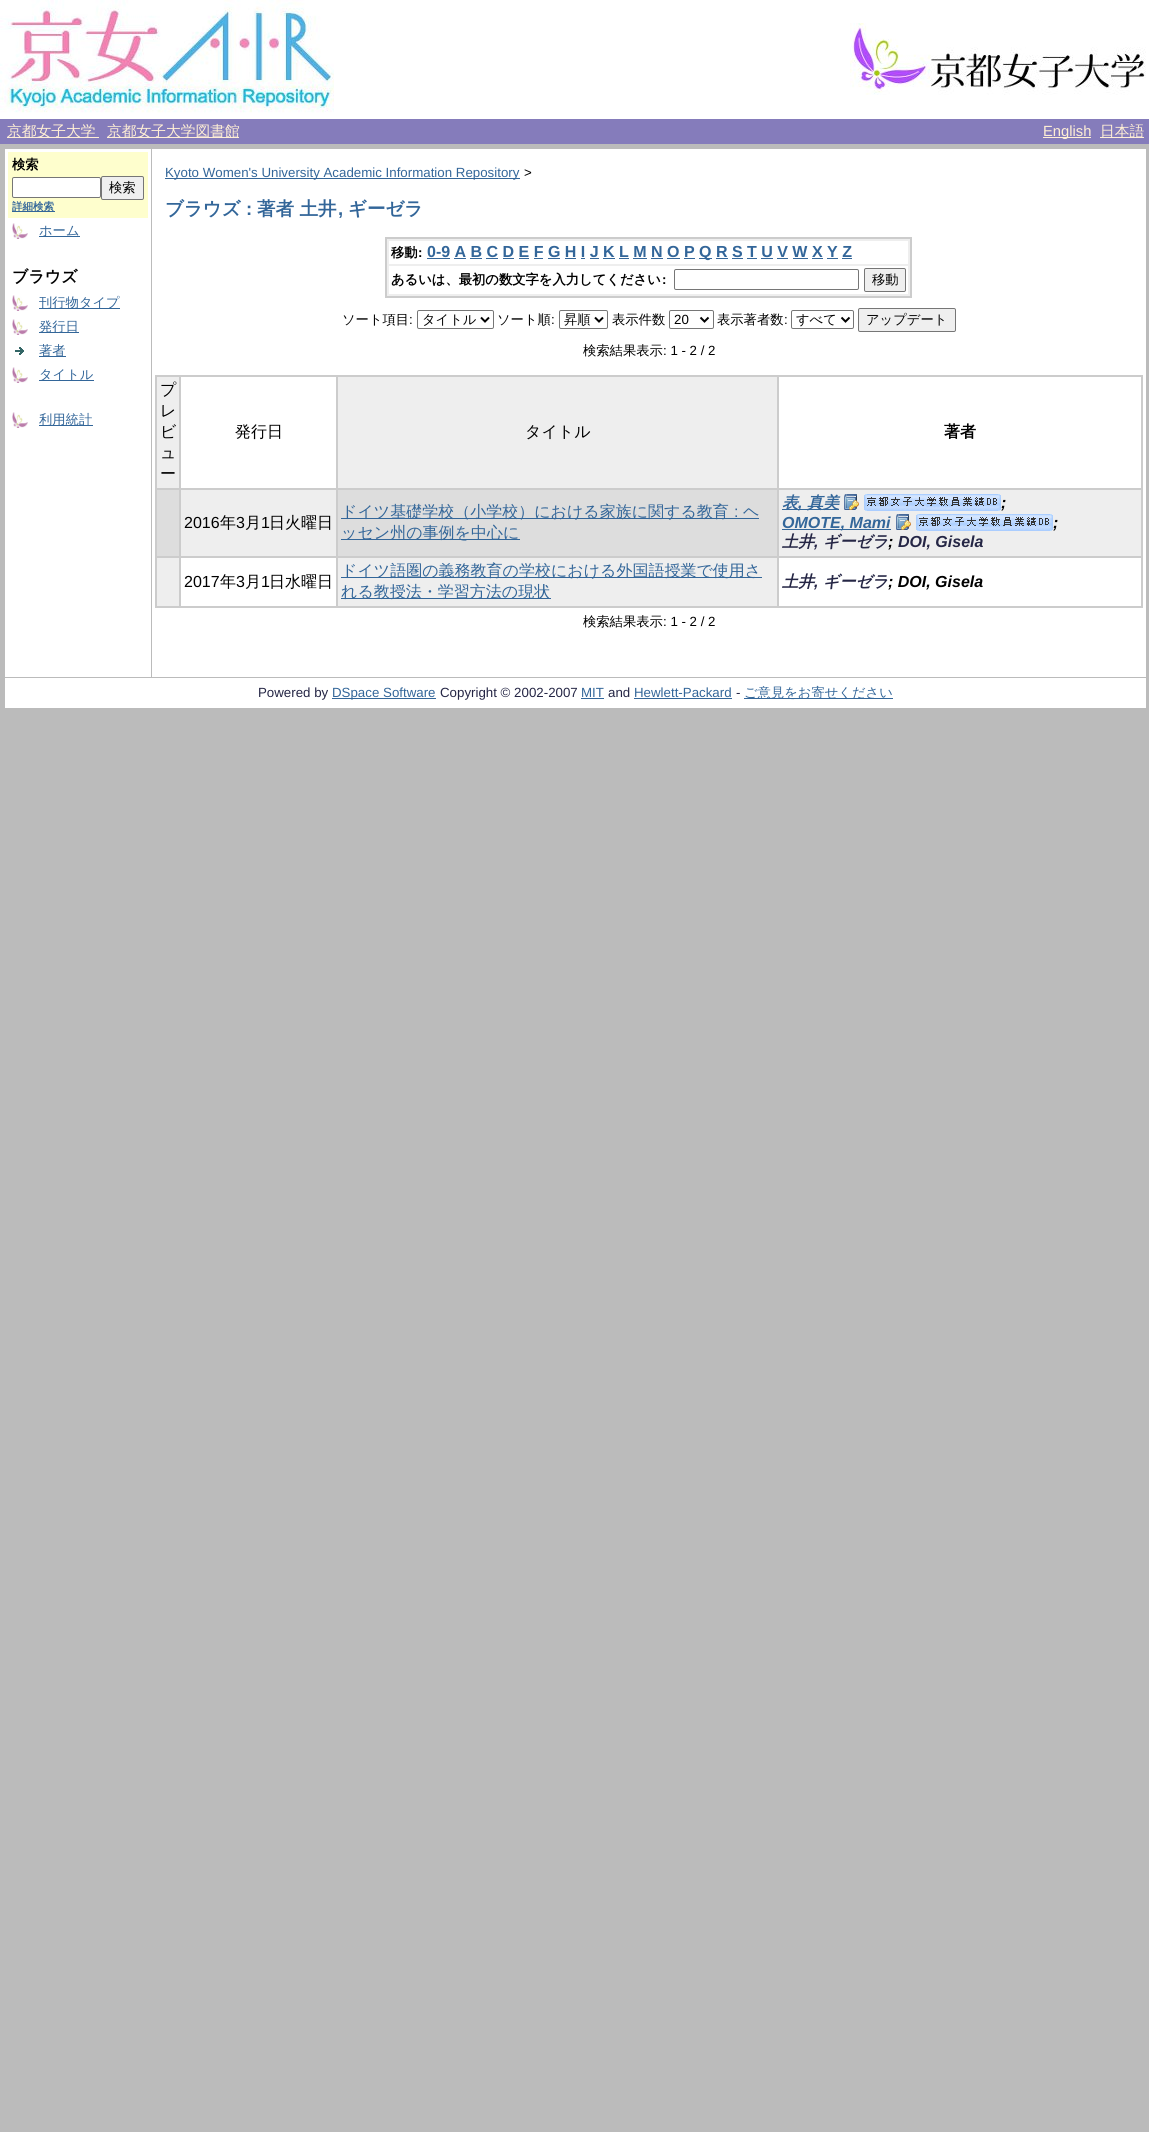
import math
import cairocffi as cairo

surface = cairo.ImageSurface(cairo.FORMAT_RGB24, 1149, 2132)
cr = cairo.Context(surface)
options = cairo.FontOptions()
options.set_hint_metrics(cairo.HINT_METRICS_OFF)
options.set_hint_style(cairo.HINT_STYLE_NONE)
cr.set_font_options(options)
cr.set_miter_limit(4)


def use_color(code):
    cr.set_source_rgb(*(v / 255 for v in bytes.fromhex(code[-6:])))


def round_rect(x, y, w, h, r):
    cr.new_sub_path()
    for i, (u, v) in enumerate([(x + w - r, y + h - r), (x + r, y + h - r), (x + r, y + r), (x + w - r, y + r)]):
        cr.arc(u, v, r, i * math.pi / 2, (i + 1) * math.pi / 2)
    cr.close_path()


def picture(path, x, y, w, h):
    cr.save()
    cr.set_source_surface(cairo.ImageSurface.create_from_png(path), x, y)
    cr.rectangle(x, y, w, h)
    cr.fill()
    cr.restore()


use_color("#bbbbbb")
cr.paint()
use_color("#ffffff")
cr.rectangle(0, 0, 1149, 119)
cr.fill()
picture("img1.png", 0, 0, 334, 113)
picture("img2.png", 850, 23, 296, 72)
use_color("#857cbb")
cr.rectangle(0, 119, 1149, 25)
cr.fill()
use_color("#ffefd5")
cr.rectangle(7, 137, 92, 1)
cr.fill()
cr.select_font_face("WenQuanYi Zen Hei Medium")
cr.set_font_size(14.75)
cr.move_to(7, 136)
cr.show_text("京都女子大学")
cr.rectangle(107, 137, 132, 1)
cr.fill()
cr.move_to(107, 136)
cr.show_text("京都女子大学図書館")
cr.rectangle(1043, 137, 48, 1)
cr.fill()
cr.select_font_face("Liberation Sans")
cr.move_to(1043, 136)
cr.show_text("English")
cr.rectangle(1100, 137, 44, 1)
cr.fill()
cr.select_font_face("WenQuanYi Zen Hei Medium")
cr.move_to(1100, 136)
cr.show_text("日本語")
use_color("#ffffff")
cr.rectangle(5, 149, 146, 528)
cr.fill()
use_color("#fefecd")
cr.rectangle(8, 152, 140, 66)
cr.fill()
cr.select_font_face("WenQuanYi Zen Hei", cairo.FONT_SLANT_NORMAL, cairo.FONT_WEIGHT_BOLD)
cr.set_font_size(13.3)
use_color("#000000")
cr.move_to(12, 169)
cr.show_text("検索")
use_color("#ffffff")
round_rect(12.5, 177.5, 88, 20, 1.5)
cr.fill_preserve()
use_color("#767676")
cr.set_line_width(1)
cr.stroke()
use_color("#efefef")
round_rect(101.5, 176.5, 42, 23, 1.5)
cr.fill_preserve()
use_color("#767676")
cr.stroke()
cr.select_font_face("WenQuanYi Zen Hei Medium")
use_color("#000000")
cr.move_to(109, 192)
cr.show_text("検索")
use_color("#336699")
cr.rectangle(12, 211, 43, 1)
cr.fill()
cr.select_font_face("WenQuanYi Zen Hei", cairo.FONT_SLANT_NORMAL, cairo.FONT_WEIGHT_BOLD)
cr.set_font_size(10.5)
cr.move_to(12, 210)
cr.show_text("詳細検索")
picture("img3.png", 12, 223, 16, 16)
cr.rectangle(39, 236, 41, 1)
cr.fill()
cr.select_font_face("WenQuanYi Zen Hei Medium")
cr.set_font_size(13.3)
cr.move_to(39, 235)
cr.show_text("ホーム")
cr.select_font_face("WenQuanYi Zen Hei", cairo.FONT_SLANT_NORMAL, cairo.FONT_WEIGHT_BOLD)
cr.set_font_size(16)
use_color("#000000")
cr.move_to(12, 282)
cr.show_text("ブラウズ")
picture("img3.png", 12, 295, 16, 16)
use_color("#336699")
cr.rectangle(39, 308, 81, 1)
cr.fill()
cr.select_font_face("WenQuanYi Zen Hei Medium")
cr.set_font_size(13.3)
cr.move_to(39, 307)
cr.show_text("刊行物タイプ")
picture("img3.png", 12, 319, 16, 16)
cr.rectangle(39, 332, 40, 1)
cr.fill()
cr.move_to(39, 331)
cr.show_text("発行日")
picture("img4.png", 15, 347, 9, 8)
cr.rectangle(39, 356, 27, 1)
cr.fill()
cr.move_to(39, 355)
cr.show_text("著者")
picture("img3.png", 12, 367, 16, 16)
cr.rectangle(39, 380, 55, 1)
cr.fill()
cr.move_to(39, 379)
cr.show_text("タイトル")
picture("img3.png", 12, 412, 16, 16)
cr.rectangle(39, 425, 54, 1)
cr.fill()
cr.move_to(39, 424)
cr.show_text("利用統計")
use_color("#ffffff")
cr.rectangle(152, 149, 994, 528)
cr.fill()
use_color("#336699")
cr.rectangle(165, 178, 355, 1)
cr.fill()
cr.select_font_face("Liberation Sans")
cr.move_to(165, 177)
cr.show_text("Kyoto Women's University Academic Information Repository")
use_color("#000000")
cr.move_to(524, 177)
cr.show_text(">")
cr.select_font_face("WenQuanYi Zen Hei", cairo.FONT_SLANT_NORMAL, cairo.FONT_WEIGHT_BOLD)
cr.set_font_size(18.5)
use_color("#336699")
cr.move_to(165, 215)
cr.show_text("ブラウズ")
cr.select_font_face("Liberation Sans", cairo.FONT_SLANT_NORMAL, cairo.FONT_WEIGHT_BOLD)
cr.move_to(246, 215)
cr.show_text(":")
cr.select_font_face("WenQuanYi Zen Hei", cairo.FONT_SLANT_NORMAL, cairo.FONT_WEIGHT_BOLD)
cr.move_to(257, 215)
cr.show_text("著者 土井")
cr.select_font_face("Liberation Sans", cairo.FONT_SLANT_NORMAL, cairo.FONT_WEIGHT_BOLD)
cr.move_to(338, 215)
cr.show_text(",")
cr.select_font_face("WenQuanYi Zen Hei", cairo.FONT_SLANT_NORMAL, cairo.FONT_WEIGHT_BOLD)
cr.move_to(348, 215)
cr.show_text("ギーゼラ")
use_color("#cccccc")
cr.rectangle(385, 237, 527, 61)
cr.fill()
use_color("#eeeeee")
cr.rectangle(387, 239, 523, 57)
cr.fill()
use_color("#ffffff")
cr.rectangle(389, 241, 519, 23)
cr.fill()
cr.set_font_size(13.3)
use_color("#000000")
cr.move_to(391, 257)
cr.show_text("移動")
cr.select_font_face("Liberation Sans", cairo.FONT_SLANT_NORMAL, cairo.FONT_WEIGHT_BOLD)
cr.move_to(418, 257)
cr.show_text(":")
cr.set_font_size(16)
use_color("#336699")
cr.move_to(427, 257)
cr.show_text("0-9 A B C D E F G H I J K L M N O P")
cr.rectangle(427, 258, 23, 1)
cr.fill()
cr.rectangle(699, 258, 13, 1)
cr.fill()
cr.move_to(699, 257)
cr.show_text("Q R S T U V W X Y Z")
cr.rectangle(454, 258, 12, 1)
cr.fill()
cr.rectangle(470, 258, 12, 1)
cr.fill()
cr.rectangle(486, 258, 12, 1)
cr.fill()
cr.rectangle(503, 258, 11, 1)
cr.fill()
cr.rectangle(519, 258, 10, 1)
cr.fill()
cr.rectangle(534, 258, 9, 1)
cr.fill()
cr.rectangle(548, 258, 12, 1)
cr.fill()
cr.rectangle(565, 258, 11, 1)
cr.fill()
cr.rectangle(581, 258, 4, 1)
cr.fill()
cr.rectangle(590, 258, 9, 1)
cr.fill()
cr.rectangle(603, 258, 12, 1)
cr.fill()
cr.rectangle(619, 258, 10, 1)
cr.fill()
cr.rectangle(633, 258, 14, 1)
cr.fill()
cr.rectangle(651, 258, 12, 1)
cr.fill()
cr.rectangle(667, 258, 13, 1)
cr.fill()
cr.rectangle(684, 258, 11, 1)
cr.fill()
cr.rectangle(716, 258, 12, 1)
cr.fill()
cr.rectangle(732, 258, 11, 1)
cr.fill()
cr.rectangle(747, 258, 10, 1)
cr.fill()
cr.rectangle(761, 258, 12, 1)
cr.fill()
cr.rectangle(777, 258, 11, 1)
cr.fill()
cr.rectangle(793, 258, 15, 1)
cr.fill()
cr.rectangle(812, 258, 11, 1)
cr.fill()
cr.rectangle(827, 258, 11, 1)
cr.fill()
cr.rectangle(842, 258, 10, 1)
cr.fill()
use_color("#ffffff")
cr.rectangle(389, 266, 519, 28)
cr.fill()
cr.select_font_face("WenQuanYi Zen Hei", cairo.FONT_SLANT_NORMAL, cairo.FONT_WEIGHT_BOLD)
cr.set_font_size(13.3)
use_color("#000000")
cr.move_to(391, 284)
cr.show_text("あるいは、最初の数文字を入力してください")
cr.select_font_face("Liberation Sans", cairo.FONT_SLANT_NORMAL, cairo.FONT_WEIGHT_BOLD)
cr.move_to(662, 284)
cr.show_text(":")
round_rect(674.5, 269.5, 184, 20, 1.5)
use_color("#767676")
cr.stroke()
use_color("#efefef")
round_rect(864.5, 268.5, 41, 23, 1.5)
cr.fill_preserve()
use_color("#767676")
cr.stroke()
cr.select_font_face("WenQuanYi Zen Hei Medium")
use_color("#000000")
cr.move_to(872, 284)
cr.show_text("移動")
cr.move_to(342, 324)
cr.show_text("ソート項目")
cr.select_font_face("Liberation Sans")
cr.move_to(409, 324)
cr.show_text(":")
round_rect(417.5, 310.5, 76, 18, 1.5)
use_color("#767676")
cr.stroke()
cr.new_path()
cr.move_to(481, 317.5)
cr.line_to(485, 321.5)
cr.line_to(489, 317.5)
use_color("#000000")
cr.set_line_width(2)
cr.stroke()
cr.select_font_face("WenQuanYi Zen Hei Medium")
cr.move_to(422, 324)
cr.show_text("タイトル")
cr.move_to(497, 324)
cr.show_text("ソート順")
cr.select_font_face("Liberation Sans")
cr.move_to(551, 324)
cr.show_text(":")
round_rect(559.5, 310.5, 48, 18, 1.5)
use_color("#767676")
cr.set_line_width(1)
cr.stroke()
cr.new_path()
cr.move_to(595, 317.5)
cr.line_to(599, 321.5)
cr.line_to(603, 317.5)
use_color("#000000")
cr.set_line_width(2)
cr.stroke()
cr.select_font_face("WenQuanYi Zen Hei Medium")
cr.move_to(564, 324)
cr.show_text("昇順")
cr.move_to(612, 324)
cr.show_text("表示件数")
round_rect(669.5, 310.5, 44, 18, 1.5)
use_color("#767676")
cr.set_line_width(1)
cr.stroke()
cr.new_path()
cr.move_to(700.5, 317.5)
cr.line_to(704.5, 321.5)
cr.line_to(708.5, 317.5)
use_color("#000000")
cr.set_line_width(2)
cr.stroke()
cr.select_font_face("Liberation Sans")
cr.move_to(674, 324)
cr.show_text("20")
cr.select_font_face("WenQuanYi Zen Hei Medium")
cr.move_to(717, 324)
cr.show_text("表示著者数")
cr.select_font_face("Liberation Sans")
cr.move_to(784, 324)
cr.show_text(":")
round_rect(791.5, 310.5, 62, 18, 1.5)
use_color("#767676")
cr.set_line_width(1)
cr.stroke()
cr.new_path()
cr.move_to(841.5, 317.5)
cr.line_to(845.5, 321.5)
cr.line_to(849.5, 317.5)
use_color("#000000")
cr.set_line_width(2)
cr.stroke()
cr.select_font_face("WenQuanYi Zen Hei Medium")
cr.move_to(796, 324)
cr.show_text("すべて")
use_color("#efefef")
round_rect(858.5, 308.5, 97, 23, 1.5)
cr.fill_preserve()
use_color("#767676")
cr.set_line_width(1)
cr.stroke()
use_color("#000000")
cr.move_to(866, 324)
cr.show_text("アップデート")
cr.move_to(583, 355)
cr.show_text("検索結果表示")
cr.select_font_face("Liberation Sans")
cr.move_to(663, 355)
cr.show_text(": 1 - 2 / 2")
use_color("#cccccc")
cr.rectangle(155, 375, 988, 233)
cr.fill()
use_color("#eeeeee")
cr.rectangle(157, 377, 22, 111)
cr.fill()
cr.select_font_face("WenQuanYi Zen Hei Medium")
cr.set_font_size(16)
use_color("#000000")
cr.move_to(160, 395)
cr.show_text("プ")
cr.move_to(160, 416)
cr.show_text("レ")
cr.move_to(160, 437)
cr.show_text("ビ")
cr.move_to(160, 458)
cr.show_text("ュ")
cr.move_to(160, 479)
cr.show_text("ー")
use_color("#ffffff")
cr.rectangle(181, 377, 155, 111)
cr.fill()
use_color("#000000")
cr.move_to(235, 437)
cr.show_text("発行日")
use_color("#eeeeee")
cr.rectangle(338, 377, 439, 111)
cr.fill()
use_color("#000000")
cr.move_to(525, 437)
cr.show_text("タイトル")
use_color("#ffffff")
cr.rectangle(779, 377, 362, 111)
cr.fill()
cr.select_font_face("WenQuanYi Zen Hei", cairo.FONT_SLANT_NORMAL, cairo.FONT_WEIGHT_BOLD)
use_color("#000000")
cr.move_to(944, 437)
cr.show_text("著者")
use_color("#dddddd")
cr.rectangle(157, 490, 22, 66)
cr.fill()
use_color("#eeeeee")
cr.rectangle(181, 490, 155, 66)
cr.fill()
cr.select_font_face("Liberation Sans")
use_color("#000000")
cr.move_to(184, 528)
cr.show_text("2016")
cr.select_font_face("WenQuanYi Zen Hei Medium")
cr.move_to(220, 528)
cr.show_text("年")
cr.select_font_face("Liberation Sans")
cr.move_to(236, 528)
cr.show_text("3")
cr.select_font_face("WenQuanYi Zen Hei Medium")
cr.move_to(245, 528)
cr.show_text("月")
cr.select_font_face("Liberation Sans")
cr.move_to(261, 528)
cr.show_text("1")
cr.select_font_face("WenQuanYi Zen Hei Medium")
cr.move_to(269, 528)
cr.show_text("日火曜日")
use_color("#dddddd")
cr.rectangle(338, 490, 439, 66)
cr.fill()
use_color("#336699")
cr.rectangle(341, 518, 418, 1)
cr.fill()
cr.move_to(341, 517)
cr.show_text("ドイツ基礎学校（小学校）における家族に関する教育")
cr.select_font_face("Liberation Sans")
cr.move_to(734, 517)
cr.show_text(":")
cr.select_font_face("WenQuanYi Zen Hei Medium")
cr.move_to(743, 517)
cr.show_text("ヘ")
cr.rectangle(341, 539, 179, 1)
cr.fill()
cr.move_to(341, 538)
cr.show_text("ッセン州の事例を中心に")
use_color("#eeeeee")
cr.rectangle(779, 490, 362, 66)
cr.fill()
use_color("#336699")
cr.rectangle(782, 509, 57, 1)
cr.fill()
cr.select_font_face("WenQuanYi Zen Hei", cairo.FONT_SLANT_ITALIC, cairo.FONT_WEIGHT_BOLD)
cr.move_to(782, 508)
cr.show_text("表")
cr.move_to(807, 508)
cr.show_text("真美")
picture("img5.png", 844, 494, 15, 16)
picture("img6.png", 864, 494, 137, 17)
cr.select_font_face("Liberation Sans", cairo.FONT_SLANT_ITALIC, cairo.FONT_WEIGHT_BOLD)
use_color("#000000")
cr.move_to(1001, 508)
cr.show_text(";")
use_color("#336699")
cr.move_to(798, 508)
cr.show_text(",")
cr.rectangle(782, 529, 109, 1)
cr.fill()
cr.move_to(782, 528)
cr.show_text("OMOTE, Mami")
picture("img5.png", 896, 514, 15, 16)
picture("img6.png", 916, 514, 137, 17)
use_color("#000000")
cr.move_to(1053, 528)
cr.show_text(";")
cr.select_font_face("WenQuanYi Zen Hei", cairo.FONT_SLANT_ITALIC, cairo.FONT_WEIGHT_BOLD)
use_color("#252645")
cr.move_to(782, 547)
cr.show_text("土井")
cr.move_to(823, 547)
cr.show_text("ギーゼラ")
cr.select_font_face("Liberation Sans", cairo.FONT_SLANT_ITALIC, cairo.FONT_WEIGHT_BOLD)
use_color("#000000")
cr.move_to(888, 547)
cr.show_text(";")
use_color("#252645")
cr.move_to(898, 547)
cr.show_text("DOI, Gisela")
cr.move_to(814, 547)
cr.show_text(",")
use_color("#eeeeee")
cr.rectangle(157, 558, 22, 48)
cr.fill()
use_color("#ffffff")
cr.rectangle(181, 558, 155, 48)
cr.fill()
cr.select_font_face("Liberation Sans")
use_color("#000000")
cr.move_to(184, 587)
cr.show_text("2017")
cr.select_font_face("WenQuanYi Zen Hei Medium")
cr.move_to(220, 587)
cr.show_text("年")
cr.select_font_face("Liberation Sans")
cr.move_to(236, 587)
cr.show_text("3")
cr.select_font_face("WenQuanYi Zen Hei Medium")
cr.move_to(245, 587)
cr.show_text("月")
cr.select_font_face("Liberation Sans")
cr.move_to(261, 587)
cr.show_text("1")
cr.select_font_face("WenQuanYi Zen Hei Medium")
cr.move_to(269, 587)
cr.show_text("日水曜日")
use_color("#eeeeee")
cr.rectangle(338, 558, 439, 48)
cr.fill()
use_color("#336699")
cr.rectangle(341, 577, 421, 1)
cr.fill()
cr.move_to(341, 576)
cr.show_text("ドイツ語圏の義務教育の学校における外国語授業で使用さ")
cr.rectangle(341, 598, 210, 1)
cr.fill()
cr.move_to(341, 597)
cr.show_text("れる教授法・学習方法の現状")
use_color("#ffffff")
cr.rectangle(779, 558, 362, 48)
cr.fill()
cr.select_font_face("WenQuanYi Zen Hei", cairo.FONT_SLANT_ITALIC, cairo.FONT_WEIGHT_BOLD)
use_color("#252645")
cr.move_to(782, 587)
cr.show_text("土井")
cr.move_to(823, 587)
cr.show_text("ギーゼラ")
cr.select_font_face("Liberation Sans", cairo.FONT_SLANT_ITALIC, cairo.FONT_WEIGHT_BOLD)
use_color("#000000")
cr.move_to(888, 587)
cr.show_text("; DOI, Gisela")
use_color("#252645")
cr.move_to(814, 587)
cr.show_text(",")
cr.select_font_face("WenQuanYi Zen Hei Medium")
cr.set_font_size(13.3)
use_color("#000000")
cr.move_to(583, 626)
cr.show_text("検索結果表示")
cr.select_font_face("Liberation Sans")
cr.move_to(663, 626)
cr.show_text(": 1 - 2 / 2")
use_color("#ffffff")
cr.rectangle(5, 678, 1141, 30)
cr.fill()
use_color("#252645")
cr.move_to(258, 697)
cr.show_text("Powered by")
use_color("#336699")
cr.rectangle(332, 698, 104, 1)
cr.fill()
cr.move_to(332, 697)
cr.show_text("DSpace Software")
use_color("#252645")
cr.move_to(440, 697)
cr.show_text("Copyright © 2002-2007")
use_color("#336699")
cr.move_to(581, 697)
cr.show_text("MIT")
cr.rectangle(581, 698, 23, 1)
cr.fill()
use_color("#252645")
cr.move_to(608, 697)
cr.show_text("and")
use_color("#336699")
cr.move_to(634, 697)
cr.show_text("Hewlett-Packard")
cr.rectangle(634, 698, 98, 1)
cr.fill()
use_color("#252645")
cr.move_to(736, 697)
cr.show_text("-")
use_color("#336699")
cr.rectangle(744, 698, 149, 1)
cr.fill()
cr.select_font_face("WenQuanYi Zen Hei Medium")
cr.move_to(744, 697)
cr.show_text("ご意見をお寄せください")
surface.write_to_png("result.png")
